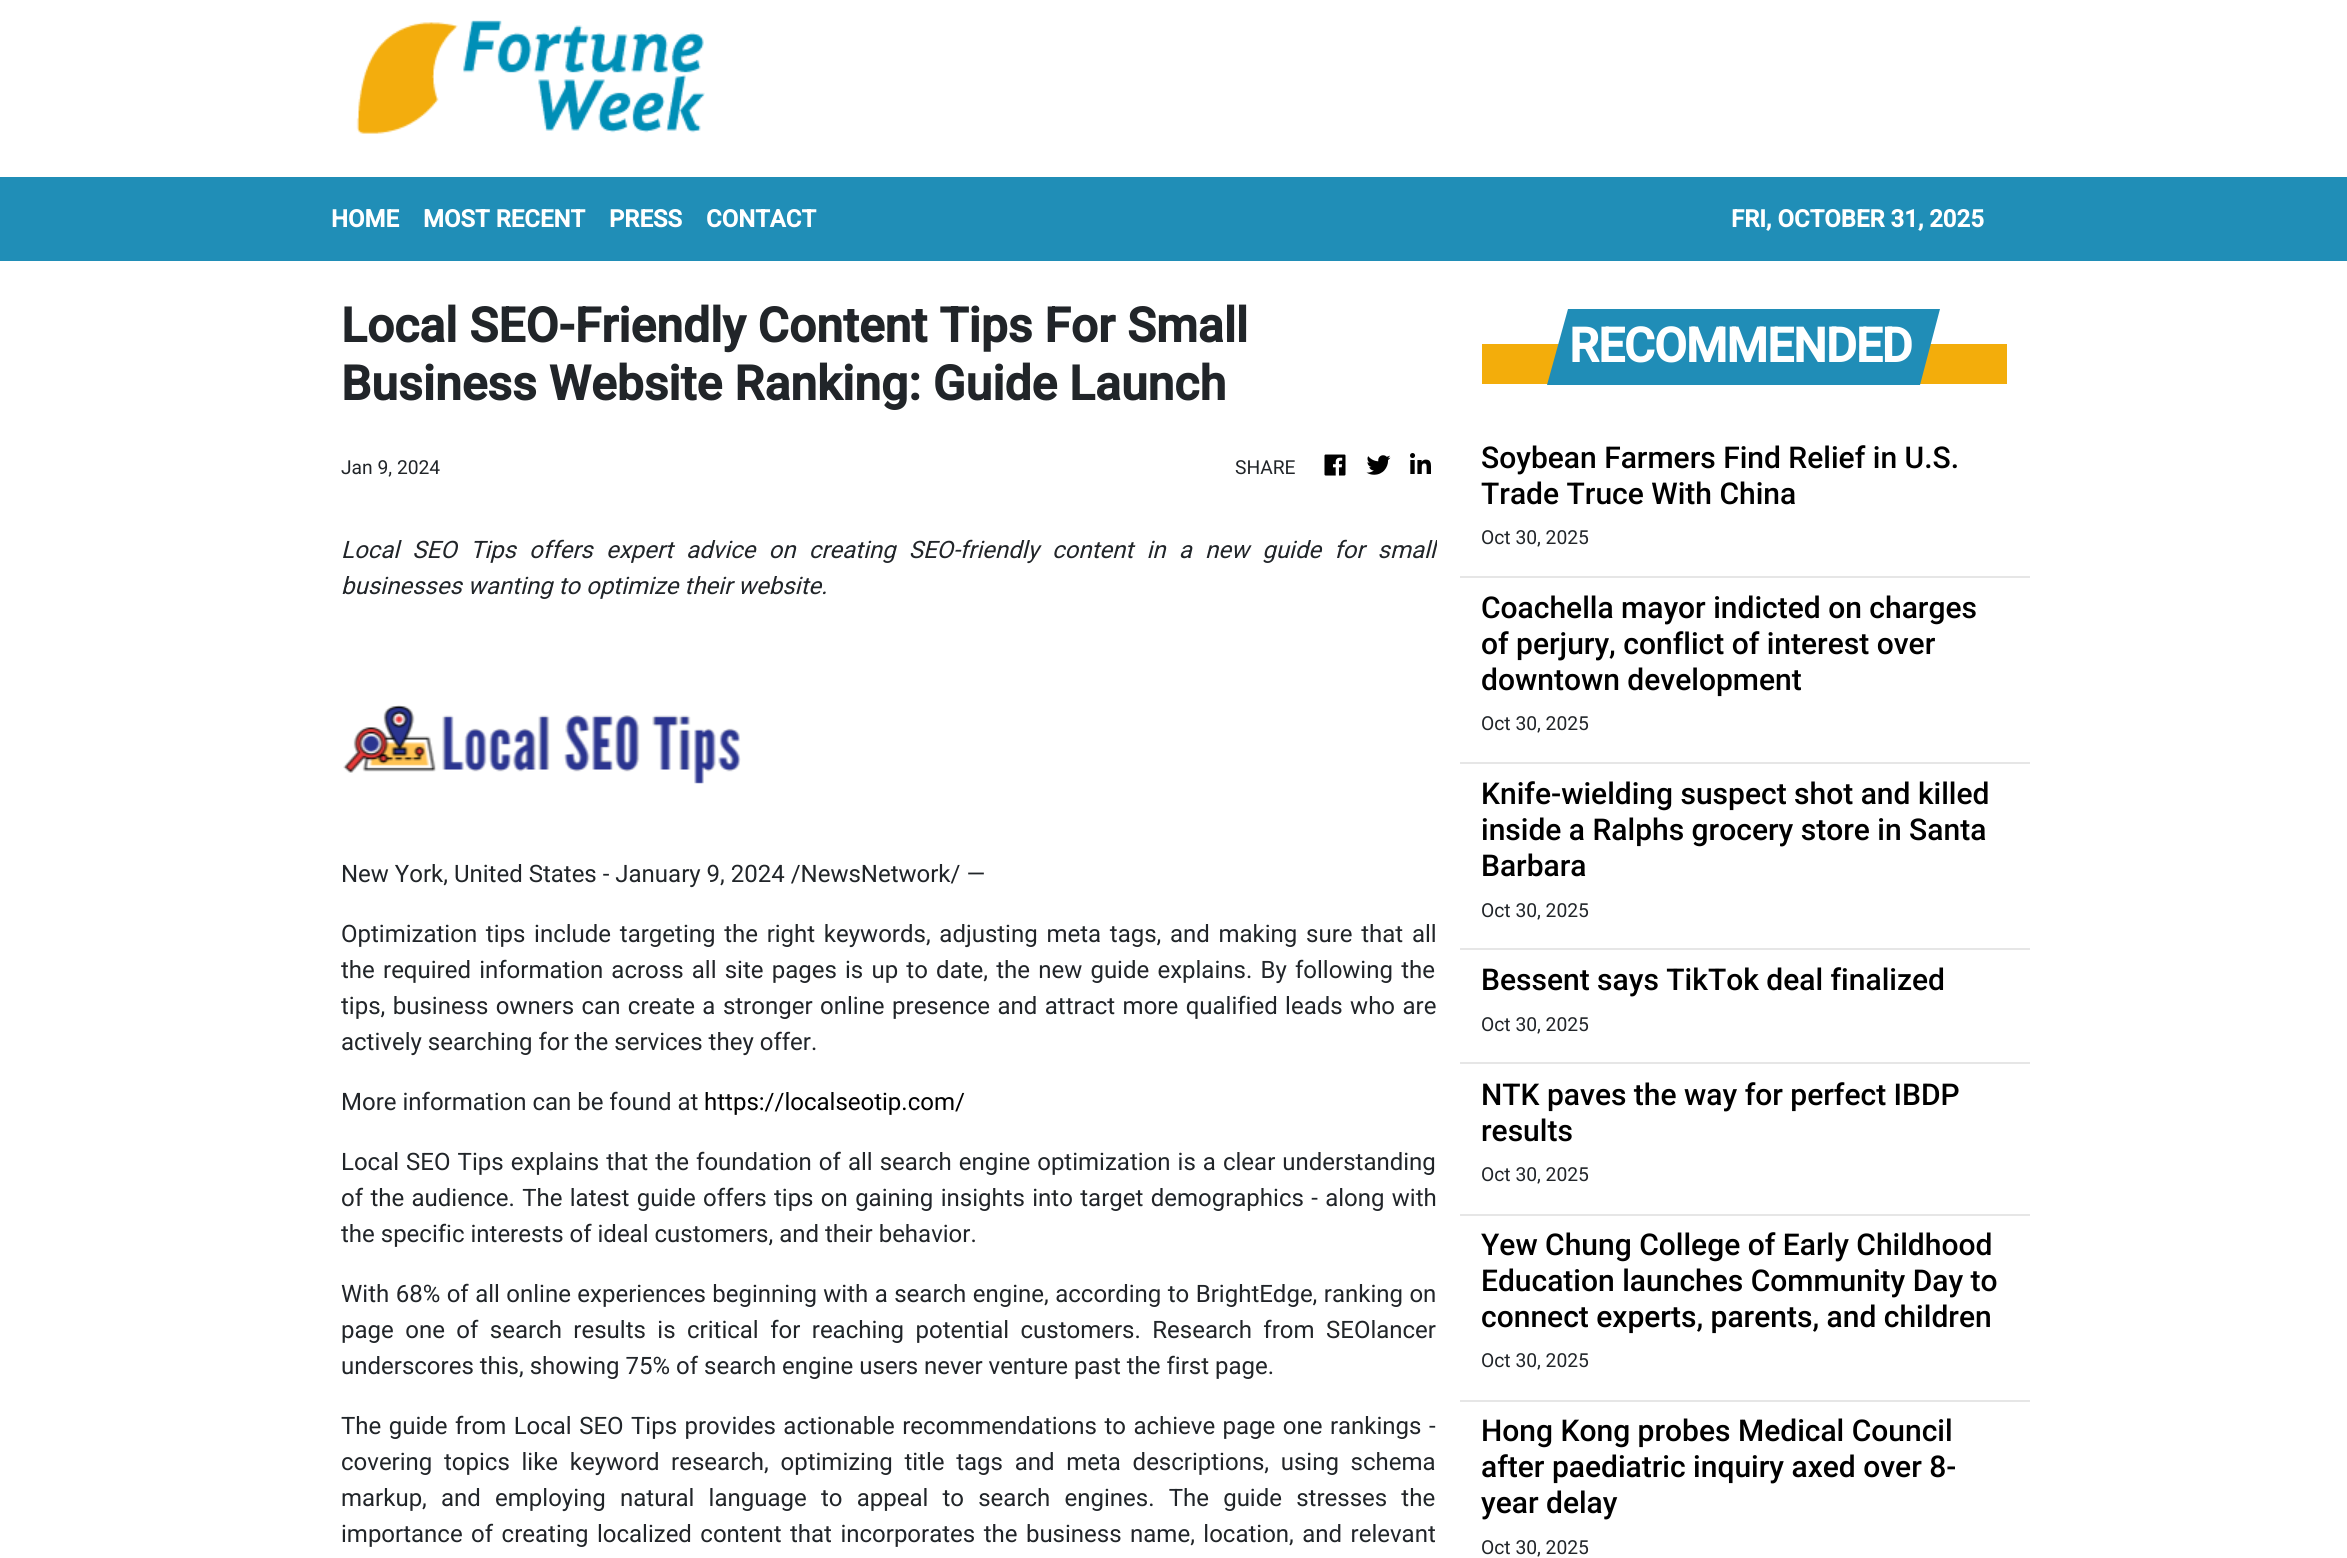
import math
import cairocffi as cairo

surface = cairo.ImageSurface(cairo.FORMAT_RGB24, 2347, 1558)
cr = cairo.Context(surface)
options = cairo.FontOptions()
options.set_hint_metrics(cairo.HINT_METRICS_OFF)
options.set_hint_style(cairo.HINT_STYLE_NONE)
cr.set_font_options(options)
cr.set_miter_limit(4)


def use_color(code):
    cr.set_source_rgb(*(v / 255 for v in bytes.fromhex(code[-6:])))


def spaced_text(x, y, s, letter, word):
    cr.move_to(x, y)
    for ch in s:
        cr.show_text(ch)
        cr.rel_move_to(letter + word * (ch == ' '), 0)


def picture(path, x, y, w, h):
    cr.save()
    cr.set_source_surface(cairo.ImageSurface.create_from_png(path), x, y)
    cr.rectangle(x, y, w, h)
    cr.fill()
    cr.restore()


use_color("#ffffff")
cr.paint()
picture("img1.png", 356, 20, 349, 114)
use_color("#208eb7")
cr.rectangle(0, 177, 2347, 84)
cr.fill()
cr.select_font_face("Roboto", cairo.FONT_SLANT_NORMAL, cairo.FONT_WEIGHT_BOLD)
cr.set_font_size(24)
use_color("#ffffff")
cr.move_to(331, 227)
cr.show_text("HOME")
cr.move_to(423, 227)
cr.show_text("MOST RECENT")
cr.move_to(609, 227)
cr.show_text("PRESS")
cr.move_to(706, 227)
cr.show_text("CONTACT")
cr.move_to(1731, 227)
cr.show_text("FRI, OCTOBER 31, 2025")
cr.set_font_size(48)
use_color("#212529")
cr.move_to(341, 342)
cr.show_text("Local SEO-Friendly Content Tips For Small")
cr.move_to(341, 400)
cr.show_text("Business Website Ranking: Guide Launch")
cr.select_font_face("Roboto")
cr.set_font_size(19.25)
cr.move_to(341, 474)
cr.show_text("Jan 9, 2024")
cr.move_to(1235, 474)
cr.show_text("SHARE")
picture("img2.png", 1324, 454, 22, 22)
picture("img3.png", 1366, 455, 25, 20)
picture("img4.png", 1410, 453, 21, 21)
cr.save()
cr.rectangle(342, 533, 1095, 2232)
cr.clip()
cr.select_font_face("Roboto", cairo.FONT_SLANT_ITALIC)
cr.set_font_size(24)
spaced_text(341, 558, "Local SEO Tips offers expert advice on creating SEO-friendly content in a new guide for small", 0, 7.25)
cr.restore()
cr.select_font_face("Roboto", cairo.FONT_SLANT_ITALIC)
cr.set_font_size(24)
cr.move_to(341, 594)
cr.show_text("businesses wanting to optimize their website.")
picture("img5.png", 343, 705, 398, 79)
cr.select_font_face("Roboto")
cr.move_to(341, 882)
cr.show_text("New York, United States - January 9, 2024 /NewsNetwork/ —")
spaced_text(341, 942, "Optimization tips include targeting the right keywords, adjusting meta tags, and making sure that all", 0, 2.75)
spaced_text(341, 978, "the required information across all site pages is up to date, the new guide explains. By following the", 0, 2.25)
spaced_text(341, 1014, "tips, business owners can create a stronger online presence and attract more qualified leads who are", 0, 1.5)
cr.move_to(341, 1050)
cr.show_text("actively searching for the services they offer.")
cr.move_to(341, 1110)
cr.show_text("More information can be found at")
use_color("#000000")
cr.move_to(704, 1110)
cr.show_text("https://localseotip.com/")
use_color("#212529")
spaced_text(341, 1170, "Local SEO Tips explains that the foundation of all search engine optimization is a clear understanding", 0, 1.1)
spaced_text(341, 1206, "of the audience. The latest guide offers tips on gaining insights into target demographics - along with", 0, 1.4)
cr.move_to(341, 1242)
cr.show_text("the specific interests of ideal customers, and their behavior.")
spaced_text(341, 1302, "With 68% of all online experiences beginning with a search engine, according to BrightEdge, ranking on", 0, 0.5)
spaced_text(341, 1338, "page one of search results is critical for reaching potential customers. Research from SEOlancer", 0, 5.5)
cr.move_to(341, 1374)
cr.show_text("underscores this, showing 75% of search engine users never venture past the first page.")
spaced_text(341, 1434, "The guide from Local SEO Tips provides actionable recommendations to achieve page one rankings -", 0, 1.5)
spaced_text(341, 1470, "covering topics like keyword research, optimizing title tags and meta descriptions, using schema", 0, 5.75)
spaced_text(341, 1506, "markup, and employing natural language to appeal to search engines. The guide stresses the", 0, 8.25)
spaced_text(341, 1542, "importance of creating localized content that incorporates the business name, location, and relevant", 0, 2.5)
use_color("#f3ad0b")
cr.rectangle(1482, 344, 525, 40)
cr.fill()
use_color("#208db7")
cr.new_path()
cr.move_to(1568, 309)
cr.line_to(1940, 309)
cr.line_to(1920, 385)
cr.line_to(1547, 385)
cr.close_path()
cr.fill()
cr.select_font_face("Roboto", cairo.FONT_SLANT_NORMAL, cairo.FONT_WEIGHT_BOLD)
cr.set_font_size(47.75)
use_color("#ffffff")
spaced_text(1569, 362, "RECOMMENDED", -1.1, 0)
cr.select_font_face("Roboto Medium")
cr.set_font_size(30)
use_color("#000000")
cr.move_to(1481, 468)
cr.show_text("Soybean Farmers Find Relief in U.S.")
cr.move_to(1481, 504)
cr.show_text("Trade Truce With China")
cr.select_font_face("Roboto")
cr.set_font_size(19.25)
use_color("#212529")
cr.move_to(1481, 544)
cr.show_text("Oct 30, 2025")
use_color("#e6e6e6")
cr.rectangle(1460, 576, 570, 2)
cr.fill()
cr.select_font_face("Roboto Medium")
cr.set_font_size(30)
use_color("#000000")
cr.move_to(1481, 618)
cr.show_text("Coachella mayor indicted on charges")
cr.move_to(1481, 654)
cr.show_text("of perjury, conflict of interest over")
cr.move_to(1481, 690)
cr.show_text("downtown development")
cr.select_font_face("Roboto")
cr.set_font_size(19.25)
use_color("#212529")
cr.move_to(1481, 730)
cr.show_text("Oct 30, 2025")
use_color("#e6e6e6")
cr.rectangle(1460, 762, 570, 2)
cr.fill()
cr.select_font_face("Roboto Medium")
cr.set_font_size(30)
use_color("#000000")
cr.move_to(1481, 804)
cr.show_text("Knife-wielding suspect shot and killed")
cr.move_to(1481, 840)
cr.show_text("inside a Ralphs grocery store in Santa")
cr.move_to(1481, 876)
cr.show_text("Barbara")
cr.select_font_face("Roboto")
cr.set_font_size(19.25)
use_color("#212529")
cr.move_to(1481, 917)
cr.show_text("Oct 30, 2025")
use_color("#e6e6e6")
cr.rectangle(1460, 948, 570, 2)
cr.fill()
cr.select_font_face("Roboto Medium")
cr.set_font_size(30)
use_color("#000000")
cr.move_to(1481, 990)
cr.show_text("Bessent says TikTok deal finalized")
cr.select_font_face("Roboto")
cr.set_font_size(19.25)
use_color("#212529")
cr.move_to(1481, 1031)
cr.show_text("Oct 30, 2025")
use_color("#e6e6e6")
cr.rectangle(1460, 1062, 570, 2)
cr.fill()
cr.select_font_face("Roboto Medium")
cr.set_font_size(30)
use_color("#000000")
cr.move_to(1481, 1105)
cr.show_text("NTK paves the way for perfect IBDP")
cr.move_to(1481, 1141)
cr.show_text("results")
cr.select_font_face("Roboto")
cr.set_font_size(19.25)
use_color("#212529")
cr.move_to(1481, 1181)
cr.show_text("Oct 30, 2025")
use_color("#e6e6e6")
cr.rectangle(1460, 1214, 570, 2)
cr.fill()
cr.select_font_face("Roboto Medium")
cr.set_font_size(30)
use_color("#000000")
cr.move_to(1481, 1255)
cr.show_text("Yew Chung College of Early Childhood")
cr.move_to(1481, 1291)
cr.show_text("Education launches Community Day to")
cr.move_to(1481, 1327)
cr.show_text("connect experts, parents, and children")
cr.select_font_face("Roboto")
cr.set_font_size(19.25)
use_color("#212529")
cr.move_to(1481, 1367)
cr.show_text("Oct 30, 2025")
use_color("#e6e6e6")
cr.rectangle(1460, 1400, 570, 2)
cr.fill()
cr.select_font_face("Roboto Medium")
cr.set_font_size(30)
use_color("#000000")
cr.move_to(1481, 1441)
cr.show_text("Hong Kong probes Medical Council")
cr.move_to(1481, 1477)
cr.show_text("after paediatric inquiry axed over 8-")
cr.move_to(1481, 1513)
cr.show_text("year delay")
cr.select_font_face("Roboto")
cr.set_font_size(19.25)
use_color("#212529")
cr.move_to(1481, 1554)
cr.show_text("Oct 30, 2025")
surface.write_to_png("result.png")
